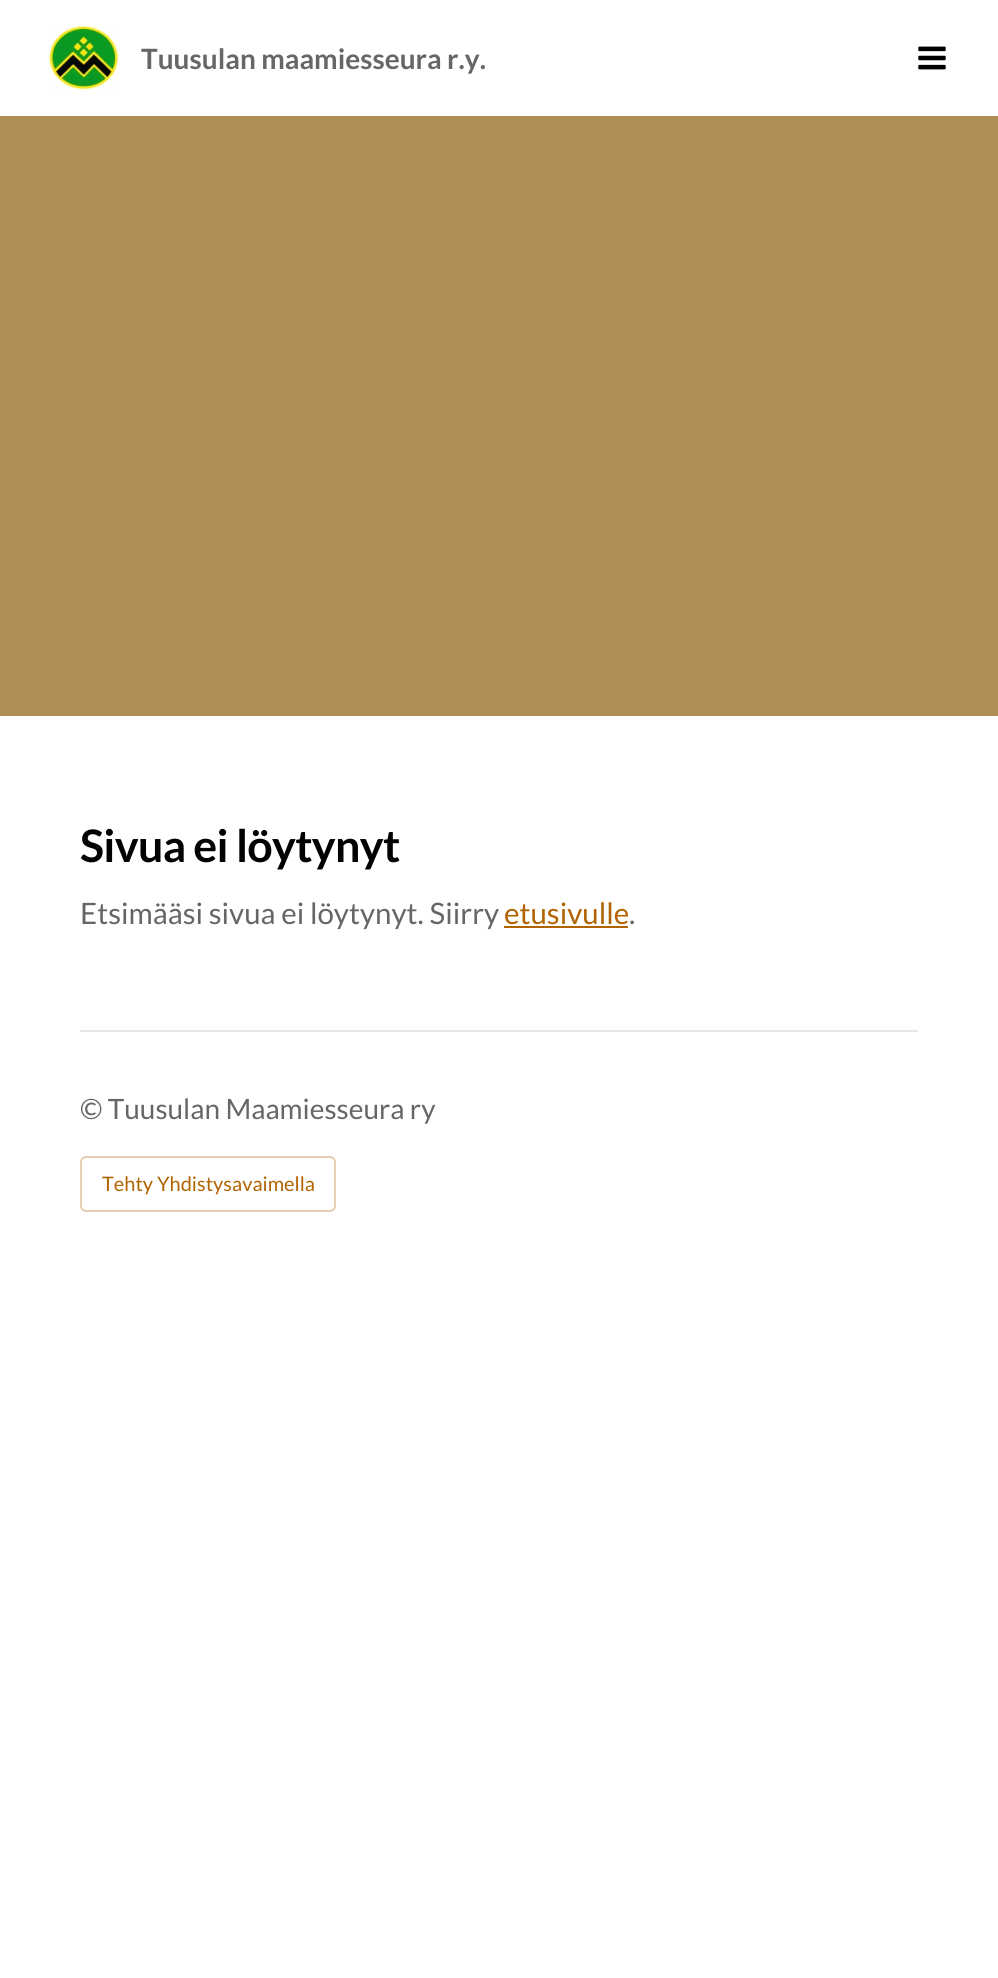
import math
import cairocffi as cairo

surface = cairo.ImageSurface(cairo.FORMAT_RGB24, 998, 1978)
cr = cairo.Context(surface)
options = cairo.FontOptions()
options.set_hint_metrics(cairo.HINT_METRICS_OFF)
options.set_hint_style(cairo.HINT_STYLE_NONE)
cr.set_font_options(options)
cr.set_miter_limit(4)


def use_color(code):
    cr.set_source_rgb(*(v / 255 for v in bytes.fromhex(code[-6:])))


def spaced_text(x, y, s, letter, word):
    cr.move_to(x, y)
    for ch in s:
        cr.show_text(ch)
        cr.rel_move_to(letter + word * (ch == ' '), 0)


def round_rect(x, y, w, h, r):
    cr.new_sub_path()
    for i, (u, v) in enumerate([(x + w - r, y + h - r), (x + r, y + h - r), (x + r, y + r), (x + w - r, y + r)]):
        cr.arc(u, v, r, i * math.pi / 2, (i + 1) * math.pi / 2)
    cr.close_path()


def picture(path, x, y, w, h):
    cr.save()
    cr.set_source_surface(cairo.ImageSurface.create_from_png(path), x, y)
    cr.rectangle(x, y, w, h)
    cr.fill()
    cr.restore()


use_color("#ffffff")
cr.paint()
picture("img1.png", 48, 26, 71, 64)
cr.select_font_face("Lato", cairo.FONT_SLANT_NORMAL, cairo.FONT_WEIGHT_BOLD)
cr.set_font_size(28)
use_color("#666666")
cr.move_to(141, 69)
cr.show_text("Tuusulan maamiesseura r.y.")
picture("img2.png", 918, 46, 28, 24)
use_color("#b08f55")
cr.rectangle(0, 116, 998, 600)
cr.fill()
cr.set_font_size(44.75)
use_color("#020202")
spaced_text(80, 862, "Sivua ei löytynyt", -0.7, 0)
cr.select_font_face("Lato")
cr.set_font_size(29.5)
use_color("#666666")
cr.move_to(80, 924)
cr.show_text("Etsimääsi sivua ei löytynyt. Siirry")
use_color("#b16302")
cr.move_to(504, 924)
cr.show_text("etusivulle")
cr.rectangle(504, 926, 124, 2)
cr.fill()
use_color("#666666")
cr.move_to(629, 924)
cr.show_text(".")
use_color("#e6e6e6")
cr.rectangle(80, 1030, 838, 2)
cr.fill()
cr.set_font_size(28)
use_color("#666666")
cr.move_to(80, 1119)
cr.show_text("© Tuusulan Maamiesseura ry")
round_rect(81, 1157, 254, 54, 5)
use_color("#e8d0b3")
cr.stroke()
cr.set_font_size(20)
use_color("#b16302")
cr.move_to(102, 1191)
cr.show_text("Tehty Yhdistysavaimella")
surface.write_to_png("result.png")
